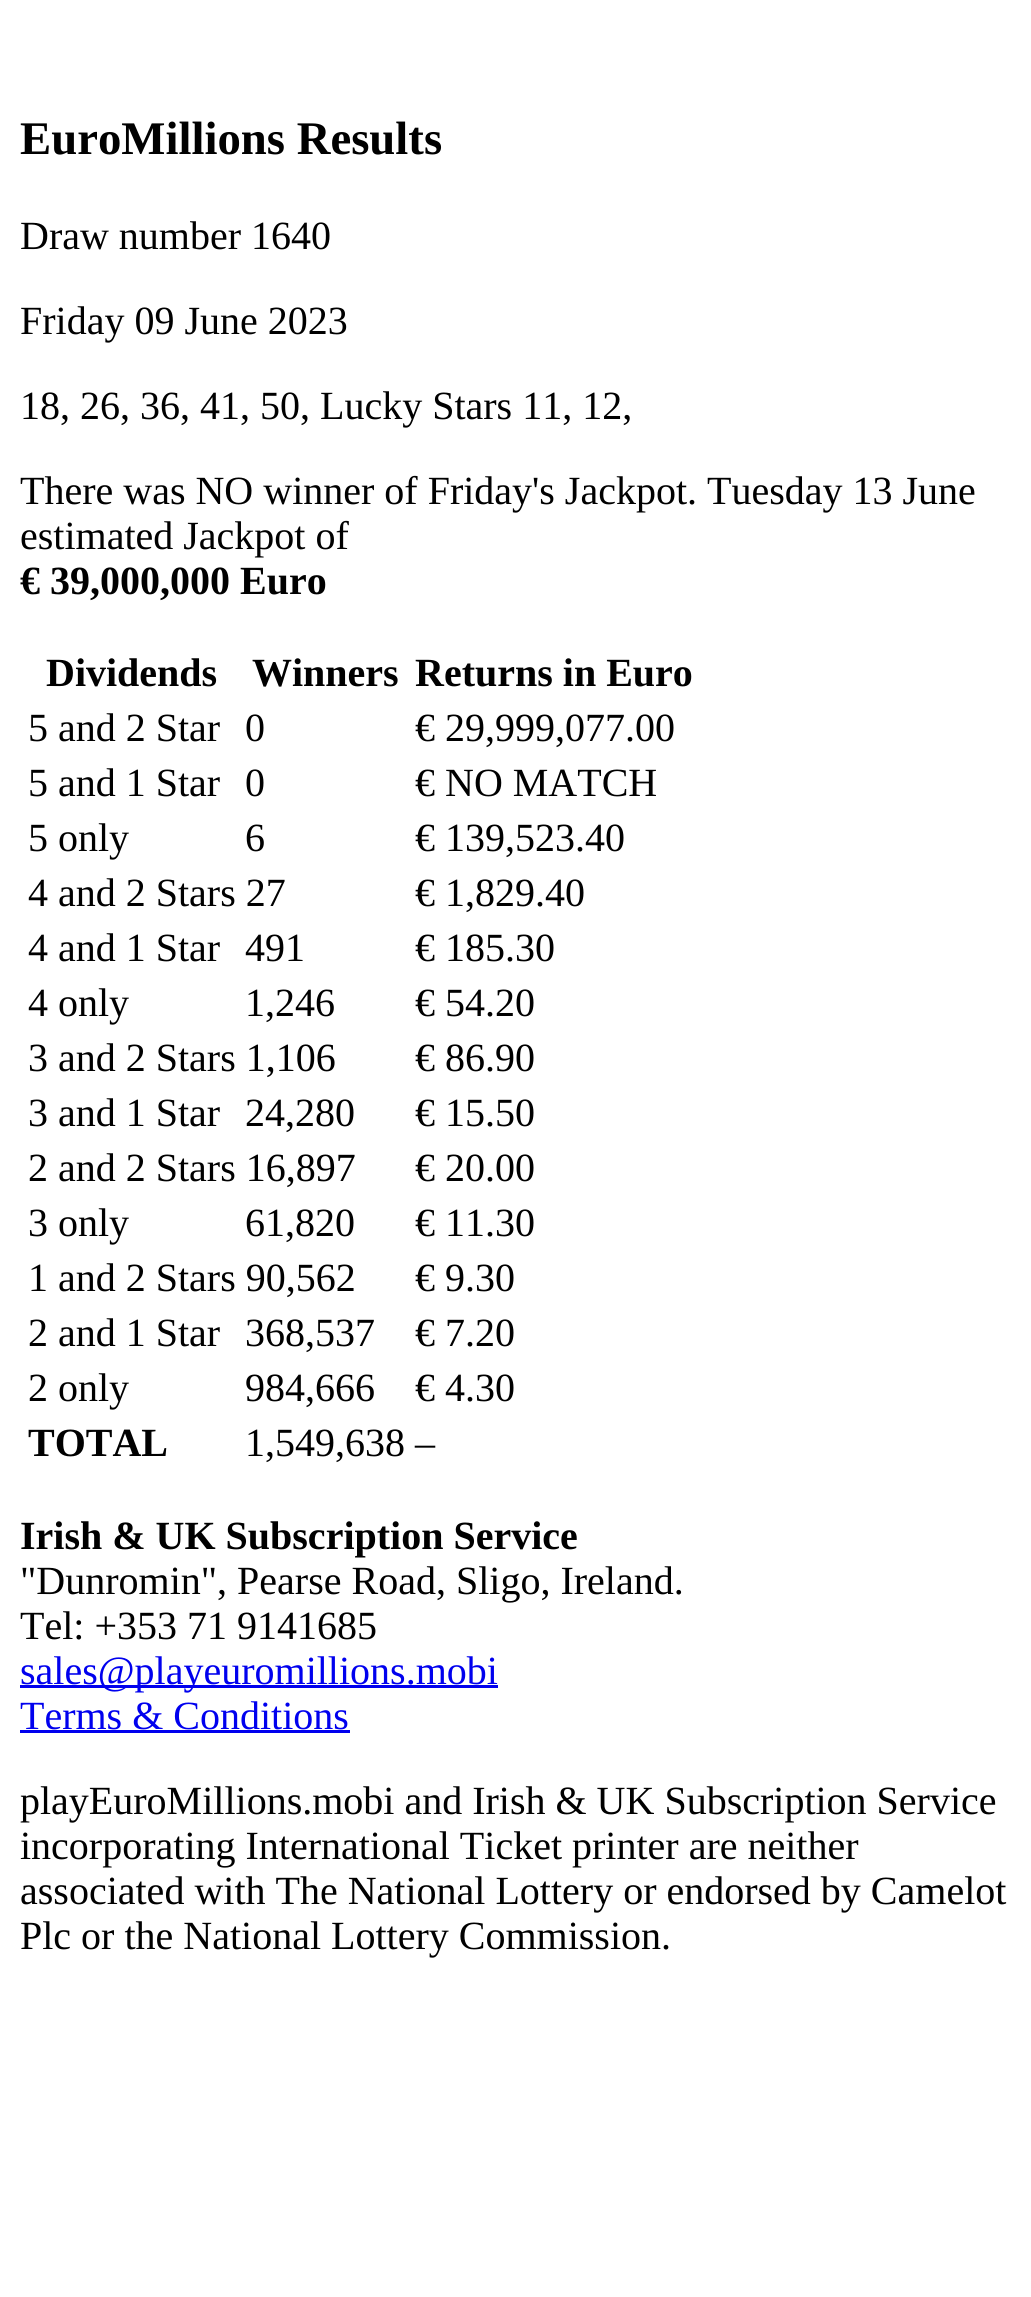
import math
import cairocffi as cairo

surface = cairo.ImageSurface(cairo.FORMAT_RGB24, 1031, 2297)
cr = cairo.Context(surface)
options = cairo.FontOptions()
options.set_hint_metrics(cairo.HINT_METRICS_OFF)
options.set_hint_style(cairo.HINT_STYLE_NONE)
cr.set_font_options(options)
cr.set_miter_limit(4)


def use_color(code):
    cr.set_source_rgb(*(v / 255 for v in bytes.fromhex(code[-6:])))


use_color("#ffffff")
cr.paint()
cr.select_font_face("Liberation Serif", cairo.FONT_SLANT_NORMAL, cairo.FONT_WEIGHT_BOLD)
cr.set_font_size(46.75)
use_color("#000000")
cr.move_to(20, 154)
cr.show_text("EuroMillions Results")
cr.select_font_face("Liberation Serif")
cr.set_font_size(40)
cr.move_to(20, 249)
cr.show_text("Draw number 1640")
cr.move_to(20, 334)
cr.show_text("Friday 09 June 2023")
cr.move_to(20, 419)
cr.show_text("18, 26, 36, 41, 50, Lucky Stars 11, 12,")
cr.move_to(20, 504)
cr.show_text("There was NO winner of Friday's Jackpot. Tuesday 13 June")
cr.move_to(20, 549)
cr.show_text("estimated Jackpot of")
cr.select_font_face("Liberation Serif", cairo.FONT_SLANT_NORMAL, cairo.FONT_WEIGHT_BOLD)
cr.move_to(20, 594)
cr.show_text("€ 39,000,000 Euro")
cr.move_to(46, 686)
cr.show_text("Dividends")
cr.move_to(252, 686)
cr.show_text("Winners")
cr.move_to(415, 686)
cr.show_text("Returns in Euro")
cr.select_font_face("Liberation Serif")
cr.move_to(28, 741)
cr.show_text("5 and 2 Star")
cr.move_to(245, 741)
cr.show_text("0")
cr.move_to(415, 741)
cr.show_text("€ 29,999,077.00")
cr.move_to(28, 796)
cr.show_text("5 and 1 Star")
cr.move_to(245, 796)
cr.show_text("0")
cr.move_to(415, 796)
cr.show_text("€ NO MATCH")
cr.move_to(28, 851)
cr.show_text("5 only")
cr.move_to(245, 851)
cr.show_text("6")
cr.move_to(415, 851)
cr.show_text("€ 139,523.40")
cr.move_to(28, 906)
cr.show_text("4 and 2 Stars 27")
cr.move_to(415, 906)
cr.show_text("€ 1,829.40")
cr.move_to(28, 961)
cr.show_text("4 and 1 Star")
cr.move_to(245, 961)
cr.show_text("491")
cr.move_to(415, 961)
cr.show_text("€ 185.30")
cr.move_to(28, 1016)
cr.show_text("4 only")
cr.move_to(245, 1016)
cr.show_text("1,246")
cr.move_to(415, 1016)
cr.show_text("€ 54.20")
cr.move_to(28, 1071)
cr.show_text("3 and 2 Stars 1,106")
cr.move_to(415, 1071)
cr.show_text("€ 86.90")
cr.move_to(28, 1126)
cr.show_text("3 and 1 Star")
cr.move_to(245, 1126)
cr.show_text("24,280")
cr.move_to(415, 1126)
cr.show_text("€ 15.50")
cr.move_to(28, 1181)
cr.show_text("2 and 2 Stars 16,897")
cr.move_to(415, 1181)
cr.show_text("€ 20.00")
cr.move_to(28, 1236)
cr.show_text("3 only")
cr.move_to(245, 1236)
cr.show_text("61,820")
cr.move_to(415, 1236)
cr.show_text("€ 11.30")
cr.move_to(28, 1291)
cr.show_text("1 and 2 Stars 90,562")
cr.move_to(415, 1291)
cr.show_text("€ 9.30")
cr.move_to(28, 1346)
cr.show_text("2 and 1 Star")
cr.move_to(245, 1346)
cr.show_text("368,537")
cr.move_to(415, 1346)
cr.show_text("€ 7.20")
cr.move_to(28, 1401)
cr.show_text("2 only")
cr.move_to(245, 1401)
cr.show_text("984,666")
cr.move_to(415, 1401)
cr.show_text("€ 4.30")
cr.select_font_face("Liberation Serif", cairo.FONT_SLANT_NORMAL, cairo.FONT_WEIGHT_BOLD)
cr.move_to(28, 1456)
cr.show_text("TOTAL")
cr.select_font_face("Liberation Serif")
cr.move_to(245, 1456)
cr.show_text("1,549,638 –")
cr.select_font_face("Liberation Serif", cairo.FONT_SLANT_NORMAL, cairo.FONT_WEIGHT_BOLD)
cr.move_to(20, 1549)
cr.show_text("Irish & UK Subscription Service")
cr.select_font_face("Liberation Serif")
cr.move_to(20, 1594)
cr.show_text("\"Dunromin\", Pearse Road, Sligo, Ireland.")
cr.move_to(20, 1639)
cr.show_text("Tel: +353 71 9141685")
use_color("#0000ee")
cr.rectangle(20, 1685, 478, 3)
cr.fill()
cr.move_to(20, 1684)
cr.show_text("sales@playeuromillions.mobi")
cr.move_to(20, 1729)
cr.show_text("Terms & Conditions")
cr.rectangle(20, 1730, 330, 3)
cr.fill()
use_color("#000000")
cr.move_to(20, 1814)
cr.show_text("playEuroMillions.mobi and Irish & UK Subscription Service")
cr.move_to(20, 1859)
cr.show_text("incorporating International Ticket printer are neither")
cr.move_to(20, 1904)
cr.show_text("associated with The National Lottery or endorsed by Camelot")
cr.move_to(20, 1949)
cr.show_text("Plc or the National Lottery Commission.")
surface.write_to_png("result.png")
